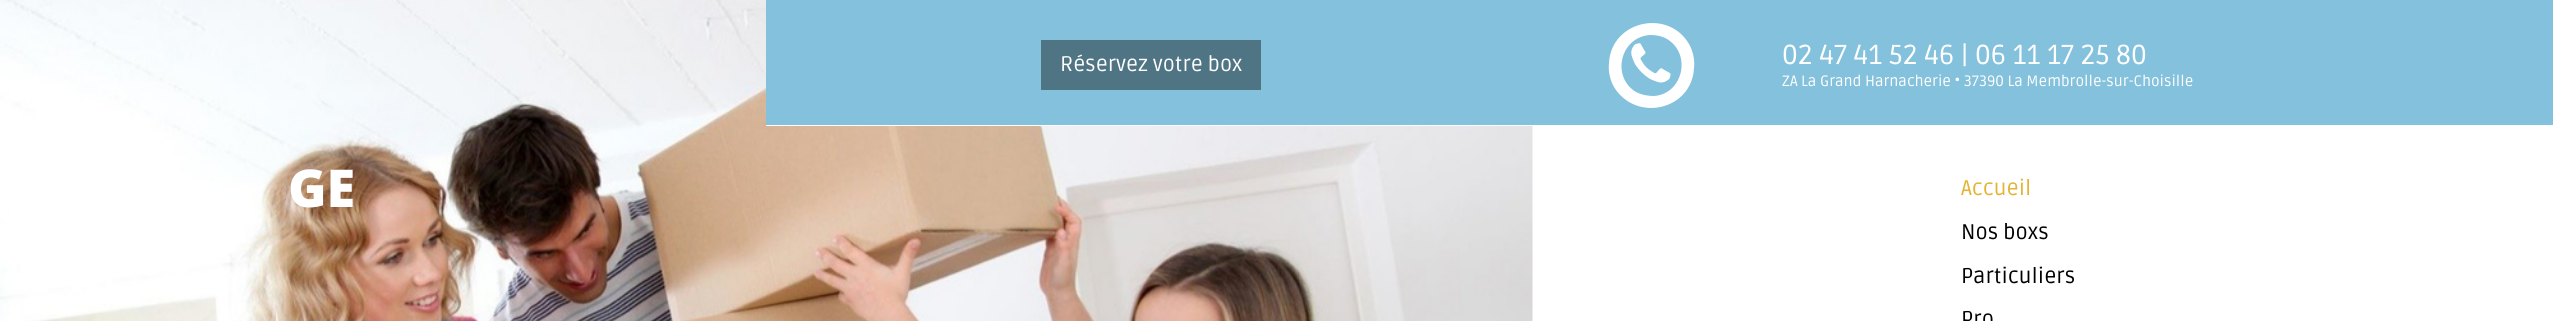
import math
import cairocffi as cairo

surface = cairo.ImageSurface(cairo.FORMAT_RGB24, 2553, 321)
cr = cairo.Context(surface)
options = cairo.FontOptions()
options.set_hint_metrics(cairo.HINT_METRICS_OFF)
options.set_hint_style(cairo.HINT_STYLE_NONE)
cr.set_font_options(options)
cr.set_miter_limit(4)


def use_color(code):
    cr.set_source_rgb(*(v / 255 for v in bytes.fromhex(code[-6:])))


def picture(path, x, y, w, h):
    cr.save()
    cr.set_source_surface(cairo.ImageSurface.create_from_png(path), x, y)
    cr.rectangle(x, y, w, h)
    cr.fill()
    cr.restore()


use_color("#ffffff")
cr.paint()
picture("img1.png", 0, 0, 1533, 321)
use_color("#83c1dc")
cr.rectangle(766, 0, 1787, 125)
cr.fill()
use_color("#ffffff")
cr.rectangle(766, 125, 767, 1)
cr.fill()
use_color("#4f7484")
cr.rectangle(1041, 40, 220, 50)
cr.fill()
cr.select_font_face("Ruda")
cr.set_font_size(21)
use_color("#ffffff")
cr.move_to(1060, 71)
cr.show_text("Réservez votre box")
cr.new_path()
cr.move_to(1667, 39)
cr.curve_to(1662, 36, 1656, 35, 1650, 35)
cr.curve_to(1620, 37, 1611, 77, 1636, 92)
cr.curve_to(1642, 95, 1648, 96, 1654, 96)
cr.curve_to(1683, 94, 1692, 54, 1667, 39)
cr.close_path()
cr.move_to(1689, 44)
cr.curve_to(1693, 51, 1695, 60, 1694, 68)
cr.curve_to(1692, 110, 1636, 123, 1614, 87)
cr.curve_to(1610, 80, 1608, 71, 1609, 63)
cr.curve_to(1611, 21, 1668, 8, 1689, 44)
cr.close_path()
cr.fill()
picture("img2.png", 1631, 43, 40, 40)
cr.set_font_size(27.5)
cr.move_to(1782, 64)
cr.show_text("02 47 41 52 46 | 06 11 17 25 80")
cr.set_font_size(15)
cr.move_to(1782, 86)
cr.show_text("ZA La Grand Harnacherie • 37390 La Membrolle-sur-Choisille")
cr.set_font_size(21.25)
use_color("#e3b334")
cr.move_to(1961, 195)
cr.show_text("Accueil")
use_color("#000000")
cr.move_to(1961, 239)
cr.show_text("Nos boxs")
cr.move_to(1961, 283)
cr.show_text("Particuliers")
cr.move_to(1961, 326)
cr.show_text("Pro")
cr.select_font_face("Khula ExtraBold")
cr.set_font_size(56)
use_color("#ffffff")
cr.move_to(288, 207)
cr.show_text("GE")
surface.write_to_png("result.png")
